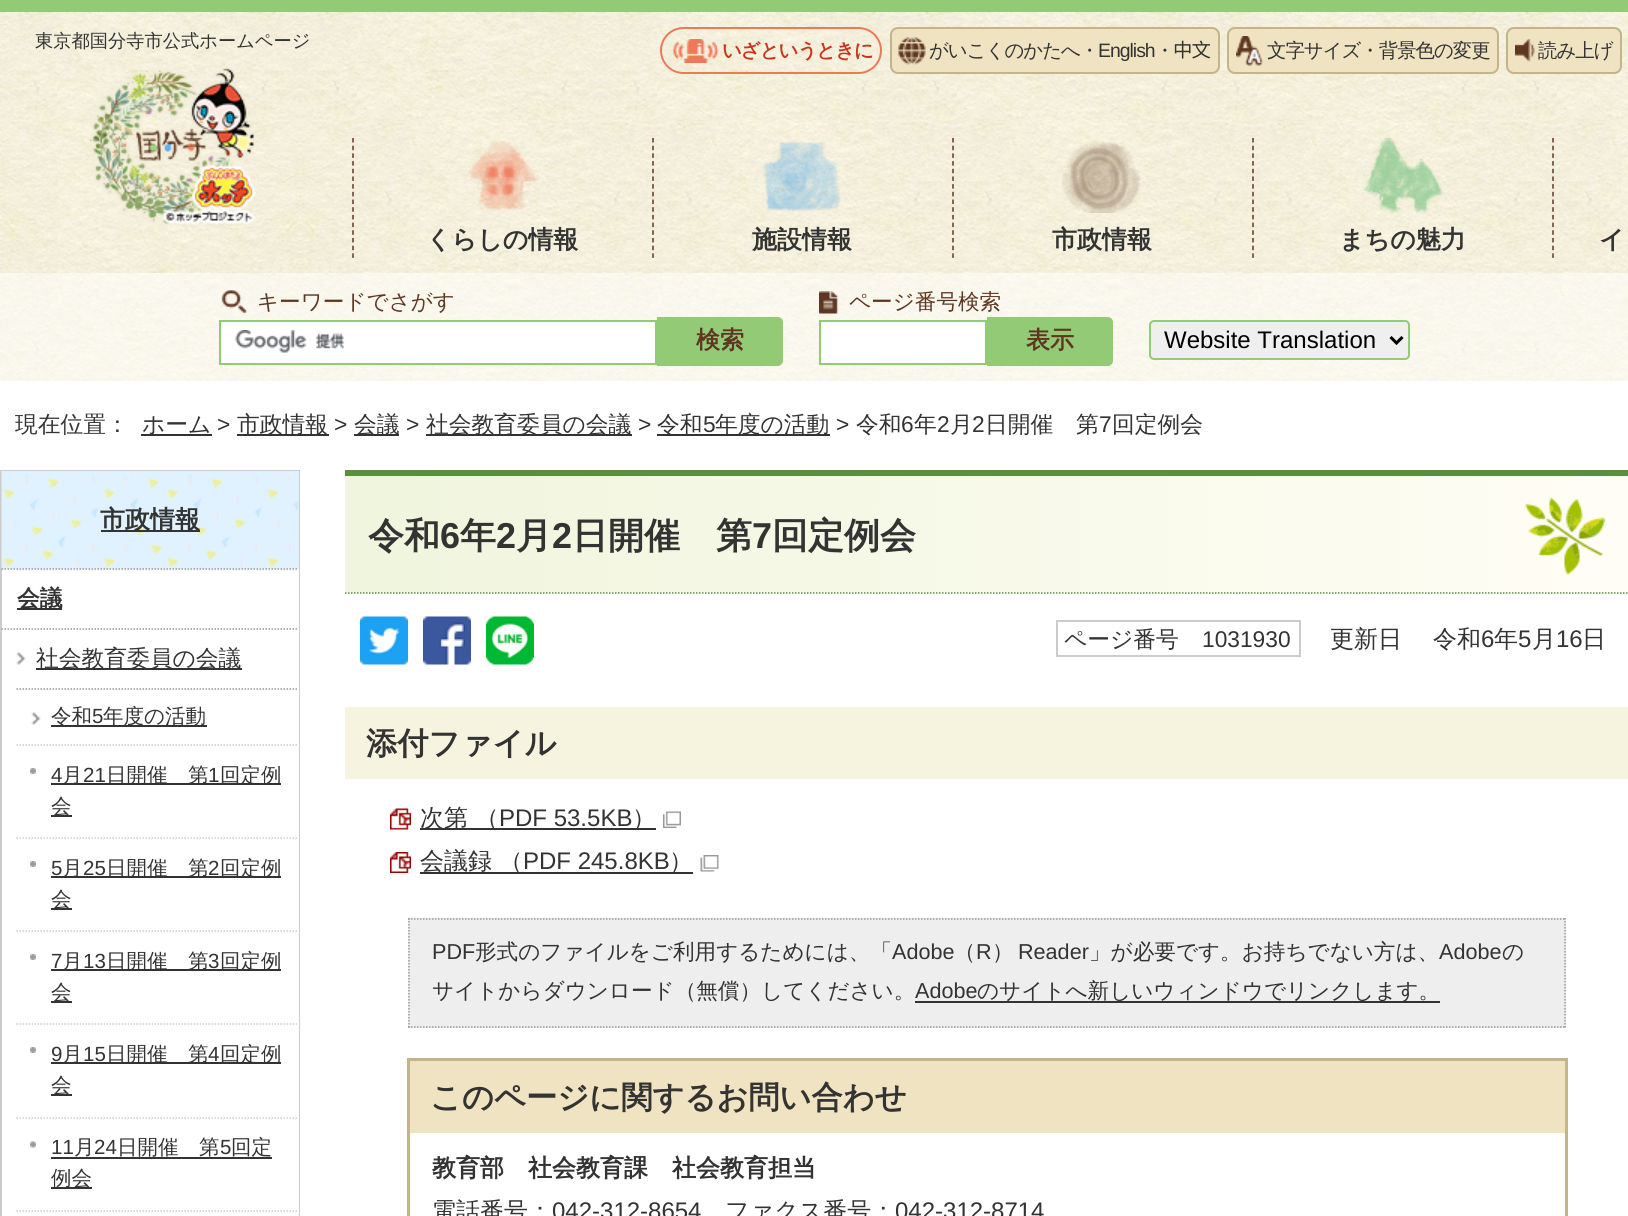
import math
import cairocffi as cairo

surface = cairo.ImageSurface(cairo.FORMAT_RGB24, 1628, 1216)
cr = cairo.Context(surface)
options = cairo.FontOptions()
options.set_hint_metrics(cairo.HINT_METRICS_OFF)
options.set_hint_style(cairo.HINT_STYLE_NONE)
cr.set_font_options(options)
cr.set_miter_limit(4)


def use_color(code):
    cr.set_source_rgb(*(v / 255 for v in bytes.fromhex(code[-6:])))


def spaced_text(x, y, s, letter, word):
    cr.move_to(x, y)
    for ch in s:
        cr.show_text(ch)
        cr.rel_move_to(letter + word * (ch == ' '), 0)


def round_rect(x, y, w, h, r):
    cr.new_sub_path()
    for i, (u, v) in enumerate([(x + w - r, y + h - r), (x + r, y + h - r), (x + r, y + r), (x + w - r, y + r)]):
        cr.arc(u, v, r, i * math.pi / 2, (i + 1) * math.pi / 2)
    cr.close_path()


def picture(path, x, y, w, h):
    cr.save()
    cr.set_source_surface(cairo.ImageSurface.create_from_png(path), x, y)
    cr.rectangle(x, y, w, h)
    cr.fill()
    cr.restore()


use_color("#ffffff")
cr.paint()
use_color("#93ca76")
cr.rectangle(0, 0, 1628, 12)
cr.fill()
picture("img1.png", 0, 12, 1628, 261)
cr.select_font_face("WenQuanYi Zen Hei Medium")
cr.set_font_size(18.25)
use_color("#333333")
cr.move_to(35, 47)
cr.show_text("東京都国分寺市公式ホームページ")
picture("img2.png", 88, 67, 168, 160)
picture("img3.png", 673, 39, 46, 24)
round_rect(661, 28, 220, 45, 22.5)
use_color("#ee7958")
cr.stroke()
cr.select_font_face("WenQuanYi Zen Hei", cairo.FONT_SLANT_NORMAL, cairo.FONT_WEIGHT_BOLD)
cr.set_font_size(19.4)
use_color("#cc351d")
spaced_text(722, 57, "いざというときに", -1, 0)
use_color("#f0e3c1")
round_rect(890, 27, 330, 47, 8)
cr.fill()
picture("img4.png", 898, 37, 28, 28)
round_rect(891, 28, 328, 45, 7)
use_color("#c4b48a")
cr.stroke()
cr.select_font_face("WenQuanYi Zen Hei Medium")
use_color("#333333")
spaced_text(929, 57, "がいこくのかたへ・", -1, 0)
cr.select_font_face("Liberation Sans")
spaced_text(1098, 57, "English", -1, 0)
cr.select_font_face("WenQuanYi Zen Hei Medium")
spaced_text(1155, 57, "・", -1, 0)
cr.select_font_face("Noto Sans CJK SC")
spaced_text(1173, 57, "中文", -1, 0)
use_color("#f0e3c1")
round_rect(1227, 27, 272, 47, 8)
cr.fill()
picture("img5.png", 1236, 36, 27, 30)
round_rect(1228, 28, 270, 45, 7)
use_color("#c4b48a")
cr.stroke()
cr.select_font_face("WenQuanYi Zen Hei Medium")
use_color("#333333")
spaced_text(1267, 57, "文字サイズ・背景色の変更", -1, 0)
use_color("#f0e3c1")
round_rect(1506, 27, 116, 47, 8)
cr.fill()
picture("img6.png", 1515, 39, 20, 23)
round_rect(1507, 28, 114, 45, 7)
use_color("#c4b48a")
cr.stroke()
use_color("#333333")
spaced_text(1538, 57, "読み上げ", -1, 0)
picture("img7.png", 352, 123, 1270, 150)
cr.new_path()
cr.move_to(353, 138)
cr.line_to(353, 258)
use_color("#5e3622")
cr.set_line_width(1.5)
cr.set_dash([4.5, 3.19])
cr.stroke()
picture("img8.png", 467, 141, 72, 71)
cr.select_font_face("WenQuanYi Zen Hei", cairo.FONT_SLANT_NORMAL, cairo.FONT_WEIGHT_BOLD)
cr.set_font_size(25)
use_color("#333333")
cr.move_to(426, 248)
cr.show_text("くらしの情報")
cr.new_path()
cr.move_to(653, 138)
cr.line_to(653, 258)
use_color("#5e3622")
cr.stroke()
picture("img9.png", 762, 142, 79, 70)
use_color("#333333")
cr.move_to(752, 248)
cr.show_text("施設情報")
cr.new_path()
cr.move_to(953, 138)
cr.line_to(953, 258)
use_color("#5e3622")
cr.stroke()
picture("img10.png", 1062, 141, 79, 72)
use_color("#333333")
cr.move_to(1052, 248)
cr.show_text("市政情報")
cr.new_path()
cr.move_to(1253, 138)
cr.line_to(1253, 258)
use_color("#5e3622")
cr.stroke()
picture("img11.png", 1362, 138, 82, 75)
use_color("#333333")
cr.move_to(1339, 248)
cr.show_text("まちの魅力")
cr.new_path()
cr.move_to(1553, 138)
cr.line_to(1553, 258)
use_color("#5e3622")
cr.stroke()
use_color("#333333")
spaced_text(1599, 248, "イ", -3, 0)
picture("img12.png", 0, 273, 1628, 108)
picture("img13.png", 221, 290, 26, 23)
cr.select_font_face("WenQuanYi Zen Hei Medium")
cr.set_font_size(21.6)
use_color("#5e3622")
cr.move_to(257, 309)
cr.show_text("キーワードでさがす")
use_color("#ffffff")
cr.rectangle(221, 322, 434, 41)
cr.fill()
picture("img14.png", 235, 330, 110, 23)
cr.rectangle(220, 321, 436, 43)
use_color("#93ca76")
cr.set_line_width(2)
cr.set_dash([])
cr.stroke()
cr.new_path()
cr.move_to(658, 318)
cr.line_to(778, 318)
cr.curve_to(780, 318, 782, 320, 782, 322)
cr.line_to(782, 361)
cr.curve_to(782, 363, 780, 365, 778, 365)
cr.line_to(658, 365)
cr.close_path()
cr.fill_preserve()
cr.stroke()
cr.select_font_face("WenQuanYi Zen Hei", cairo.FONT_SLANT_NORMAL, cairo.FONT_WEIGHT_BOLD)
cr.set_font_size(24)
use_color("#5e3622")
cr.move_to(696, 348)
cr.show_text("検索")
picture("img15.png", 819, 291, 20, 23)
cr.select_font_face("WenQuanYi Zen Hei Medium")
cr.set_font_size(21.6)
cr.move_to(849, 309)
cr.show_text("ページ番号検索")
use_color("#ffffff")
cr.rectangle(820, 321, 166, 43)
cr.fill_preserve()
use_color("#93ca76")
cr.stroke()
cr.new_path()
cr.move_to(988, 318)
cr.line_to(1108, 318)
cr.curve_to(1110, 318, 1112, 320, 1112, 322)
cr.line_to(1112, 361)
cr.curve_to(1112, 363, 1110, 365, 1108, 365)
cr.line_to(988, 365)
cr.close_path()
cr.fill_preserve()
cr.stroke()
cr.select_font_face("WenQuanYi Zen Hei", cairo.FONT_SLANT_NORMAL, cairo.FONT_WEIGHT_BOLD)
cr.set_font_size(24)
use_color("#5e3622")
cr.move_to(1026, 348)
cr.show_text("表示")
use_color("#efefef")
round_rect(1150, 321, 259, 38, 4)
cr.fill_preserve()
use_color("#93ca76")
cr.stroke()
cr.new_path()
cr.move_to(1390.5, 337)
cr.line_to(1396.5, 343)
cr.line_to(1402.5, 337)
use_color("#000000")
cr.set_line_width(3)
cr.stroke()
cr.select_font_face("Liberation Sans")
cr.move_to(1164, 348)
cr.show_text("Website Translation")
cr.select_font_face("WenQuanYi Zen Hei Medium")
cr.set_font_size(22.75)
use_color("#333333")
cr.move_to(15, 432)
cr.show_text("現在位置：")
cr.rectangle(141, 434, 71, 2)
cr.fill()
cr.move_to(142, 432)
cr.show_text("ホーム")
cr.select_font_face("Liberation Sans")
cr.move_to(217, 432)
cr.show_text(">")
cr.rectangle(237, 434, 92, 2)
cr.fill()
cr.select_font_face("WenQuanYi Zen Hei Medium")
cr.move_to(237, 432)
cr.show_text("市政情報")
cr.select_font_face("Liberation Sans")
cr.move_to(334, 432)
cr.show_text(">")
cr.rectangle(354, 434, 45, 2)
cr.fill()
cr.select_font_face("WenQuanYi Zen Hei Medium")
cr.move_to(354, 432)
cr.show_text("会議")
cr.select_font_face("Liberation Sans")
cr.move_to(406, 432)
cr.show_text(">")
cr.rectangle(426, 434, 206, 2)
cr.fill()
cr.select_font_face("WenQuanYi Zen Hei Medium")
cr.move_to(426, 432)
cr.show_text("社会教育委員の会議")
cr.select_font_face("Liberation Sans")
cr.move_to(638, 432)
cr.show_text(">")
cr.rectangle(657, 434, 173, 2)
cr.fill()
cr.select_font_face("WenQuanYi Zen Hei Medium")
cr.move_to(657, 432)
cr.show_text("令和")
cr.select_font_face("Liberation Sans")
cr.move_to(703, 432)
cr.show_text("5")
cr.select_font_face("WenQuanYi Zen Hei Medium")
cr.move_to(715, 432)
cr.show_text("年度の活動")
cr.select_font_face("Liberation Sans")
cr.move_to(836, 432)
cr.show_text(">")
cr.select_font_face("WenQuanYi Zen Hei Medium")
cr.move_to(856, 432)
cr.show_text("令和")
cr.select_font_face("Liberation Sans")
cr.move_to(901, 432)
cr.show_text("6")
cr.select_font_face("WenQuanYi Zen Hei Medium")
cr.move_to(914, 432)
cr.show_text("年")
cr.select_font_face("Liberation Sans")
cr.move_to(937, 432)
cr.show_text("2")
cr.select_font_face("WenQuanYi Zen Hei Medium")
cr.move_to(950, 432)
cr.show_text("月")
cr.select_font_face("Liberation Sans")
cr.move_to(972, 432)
cr.show_text("2")
cr.select_font_face("WenQuanYi Zen Hei Medium")
cr.move_to(985, 432)
cr.show_text("日開催　第")
cr.select_font_face("Liberation Sans")
cr.move_to(1099, 432)
cr.show_text("7")
cr.select_font_face("WenQuanYi Zen Hei Medium")
cr.move_to(1112, 432)
cr.show_text("回定例会")
cr.rectangle(1, 471, 298, 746)
use_color("#cccccc")
cr.set_line_width(2)
cr.stroke()
use_color("#dff1ff")
cr.rectangle(2, 471, 297, 98)
cr.fill()
picture("img16.png", 1, 471, 298, 98)
use_color("#333333")
cr.rectangle(101, 530, 99, 2)
cr.fill()
cr.select_font_face("WenQuanYi Zen Hei", cairo.FONT_SLANT_NORMAL, cairo.FONT_WEIGHT_BOLD)
cr.set_font_size(25)
cr.move_to(100, 528)
cr.show_text("市政情報")
use_color("#ffffff")
cr.rectangle(298, 569, 1, 647)
cr.fill()
cr.new_path()
cr.move_to(1.5, 569)
cr.line_to(298.5, 569)
use_color("#999999")
cr.set_line_width(1.5)
cr.set_dash([1.5, 1.5])
cr.stroke()
use_color("#333333")
cr.rectangle(17, 608, 45, 2)
cr.fill()
cr.set_font_size(22.75)
cr.move_to(17, 606)
cr.show_text("会議")
picture("img17.png", 16, 652, 10, 13)
cr.new_path()
cr.move_to(1.5, 629)
cr.line_to(298.5, 629)
use_color("#999999")
cr.stroke()
use_color("#333333")
cr.rectangle(36, 668, 206, 2)
cr.fill()
cr.select_font_face("WenQuanYi Zen Hei Medium")
cr.move_to(36, 666)
cr.show_text("社会教育委員の会議")
picture("img17.png", 31, 712, 10, 13)
cr.new_path()
cr.move_to(16.5, 689)
cr.line_to(298.5, 689)
use_color("#999999")
cr.stroke()
use_color("#333333")
cr.rectangle(51, 725, 156, 2)
cr.fill()
cr.set_font_size(20.5)
cr.move_to(51, 723)
cr.show_text("令和")
cr.select_font_face("Liberation Sans")
cr.move_to(92, 723)
cr.show_text("5")
cr.select_font_face("WenQuanYi Zen Hei Medium")
cr.move_to(103, 723)
cr.show_text("年度の活動")
picture("img18.png", 30, 768, 6, 6)
cr.new_path()
cr.move_to(16.5, 745)
cr.line_to(298.5, 745)
use_color("#cccccc")
cr.stroke()
cr.select_font_face("Liberation Sans")
use_color("#333333")
cr.move_to(51, 782)
cr.show_text("4")
cr.rectangle(51, 783, 230, 2)
cr.fill()
cr.select_font_face("WenQuanYi Zen Hei Medium")
cr.move_to(62, 782)
cr.show_text("月")
cr.select_font_face("Liberation Sans")
cr.move_to(83, 782)
cr.show_text("21")
cr.select_font_face("WenQuanYi Zen Hei Medium")
cr.move_to(106, 782)
cr.show_text("日開催　第")
cr.select_font_face("Liberation Sans")
cr.move_to(208, 782)
cr.show_text("1")
cr.select_font_face("WenQuanYi Zen Hei Medium")
cr.move_to(220, 782)
cr.show_text("回定例")
cr.rectangle(51, 815, 21, 2)
cr.fill()
cr.move_to(51, 813)
cr.show_text("会")
picture("img18.png", 30, 861, 6, 6)
cr.new_path()
cr.move_to(16.5, 838)
cr.line_to(298.5, 838)
use_color("#cccccc")
cr.stroke()
cr.select_font_face("Liberation Sans")
use_color("#333333")
cr.move_to(51, 875)
cr.show_text("5")
cr.rectangle(51, 876, 230, 2)
cr.fill()
cr.select_font_face("WenQuanYi Zen Hei Medium")
cr.move_to(62, 875)
cr.show_text("月")
cr.select_font_face("Liberation Sans")
cr.move_to(83, 875)
cr.show_text("25")
cr.select_font_face("WenQuanYi Zen Hei Medium")
cr.move_to(106, 875)
cr.show_text("日開催　第")
cr.select_font_face("Liberation Sans")
cr.move_to(208, 875)
cr.show_text("2")
cr.select_font_face("WenQuanYi Zen Hei Medium")
cr.move_to(220, 875)
cr.show_text("回定例")
cr.rectangle(51, 908, 21, 2)
cr.fill()
cr.move_to(51, 906)
cr.show_text("会")
picture("img18.png", 30, 954, 6, 6)
cr.new_path()
cr.move_to(16.5, 931)
cr.line_to(298.5, 931)
use_color("#cccccc")
cr.stroke()
cr.select_font_face("Liberation Sans")
use_color("#333333")
cr.move_to(51, 968)
cr.show_text("7")
cr.rectangle(51, 969, 230, 2)
cr.fill()
cr.select_font_face("WenQuanYi Zen Hei Medium")
cr.move_to(62, 968)
cr.show_text("月")
cr.select_font_face("Liberation Sans")
cr.move_to(83, 968)
cr.show_text("13")
cr.select_font_face("WenQuanYi Zen Hei Medium")
cr.move_to(106, 968)
cr.show_text("日開催　第")
cr.select_font_face("Liberation Sans")
cr.move_to(208, 968)
cr.show_text("3")
cr.select_font_face("WenQuanYi Zen Hei Medium")
cr.move_to(220, 968)
cr.show_text("回定例")
cr.rectangle(51, 1001, 21, 2)
cr.fill()
cr.move_to(51, 999)
cr.show_text("会")
picture("img18.png", 30, 1047, 6, 6)
cr.new_path()
cr.move_to(16.5, 1024)
cr.line_to(298.5, 1024)
use_color("#cccccc")
cr.stroke()
cr.select_font_face("Liberation Sans")
use_color("#333333")
cr.move_to(51, 1061)
cr.show_text("9")
cr.rectangle(51, 1062, 230, 2)
cr.fill()
cr.select_font_face("WenQuanYi Zen Hei Medium")
cr.move_to(62, 1061)
cr.show_text("月")
cr.select_font_face("Liberation Sans")
cr.move_to(83, 1061)
cr.show_text("15")
cr.select_font_face("WenQuanYi Zen Hei Medium")
cr.move_to(106, 1061)
cr.show_text("日開催　第")
cr.select_font_face("Liberation Sans")
cr.move_to(208, 1061)
cr.show_text("4")
cr.select_font_face("WenQuanYi Zen Hei Medium")
cr.move_to(220, 1061)
cr.show_text("回定例")
cr.rectangle(51, 1094, 21, 2)
cr.fill()
cr.move_to(51, 1092)
cr.show_text("会")
picture("img19.png", 30, 1141, 6, 7)
cr.new_path()
cr.move_to(16.5, 1118)
cr.line_to(298.5, 1118)
use_color("#cccccc")
cr.stroke()
cr.select_font_face("Liberation Sans")
use_color("#333333")
cr.move_to(51, 1154)
cr.show_text("11")
cr.select_font_face("WenQuanYi Zen Hei Medium")
cr.move_to(74, 1154)
cr.show_text("月")
cr.rectangle(51, 1157, 221, 2)
cr.fill()
cr.select_font_face("Liberation Sans")
cr.move_to(94, 1154)
cr.show_text("24")
cr.select_font_face("WenQuanYi Zen Hei Medium")
cr.move_to(117, 1154)
cr.show_text("日開催　第")
cr.select_font_face("Liberation Sans")
cr.move_to(220, 1154)
cr.show_text("5")
cr.select_font_face("WenQuanYi Zen Hei Medium")
cr.move_to(231, 1154)
cr.show_text("回定")
cr.rectangle(51, 1187, 41, 2)
cr.fill()
cr.move_to(51, 1185)
cr.show_text("例会")
cr.new_path()
cr.move_to(16.5, 1211)
cr.line_to(298.5, 1211)
use_color("#cccccc")
cr.stroke()
picture("img20.png", 345, 476, 1283, 117)
use_color("#5a8f3d")
cr.rectangle(345, 470, 1283, 6)
cr.fill()
cr.new_path()
cr.move_to(345, 593)
cr.line_to(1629, 593)
cr.stroke()
cr.select_font_face("WenQuanYi Zen Hei", cairo.FONT_SLANT_NORMAL, cairo.FONT_WEIGHT_BOLD)
cr.set_font_size(36)
use_color("#333333")
cr.move_to(368, 548)
cr.show_text("令和")
cr.select_font_face("Liberation Sans", cairo.FONT_SLANT_NORMAL, cairo.FONT_WEIGHT_BOLD)
cr.move_to(440, 548)
cr.show_text("6")
cr.select_font_face("WenQuanYi Zen Hei", cairo.FONT_SLANT_NORMAL, cairo.FONT_WEIGHT_BOLD)
cr.move_to(460, 548)
cr.show_text("年")
cr.select_font_face("Liberation Sans", cairo.FONT_SLANT_NORMAL, cairo.FONT_WEIGHT_BOLD)
cr.move_to(496, 548)
cr.show_text("2")
cr.select_font_face("WenQuanYi Zen Hei", cairo.FONT_SLANT_NORMAL, cairo.FONT_WEIGHT_BOLD)
cr.move_to(516, 548)
cr.show_text("月")
cr.select_font_face("Liberation Sans", cairo.FONT_SLANT_NORMAL, cairo.FONT_WEIGHT_BOLD)
cr.move_to(552, 548)
cr.show_text("2")
cr.select_font_face("WenQuanYi Zen Hei", cairo.FONT_SLANT_NORMAL, cairo.FONT_WEIGHT_BOLD)
cr.move_to(572, 548)
cr.show_text("日開催　第")
cr.select_font_face("Liberation Sans", cairo.FONT_SLANT_NORMAL, cairo.FONT_WEIGHT_BOLD)
cr.move_to(752, 548)
cr.show_text("7")
cr.select_font_face("WenQuanYi Zen Hei", cairo.FONT_SLANT_NORMAL, cairo.FONT_WEIGHT_BOLD)
cr.move_to(772, 548)
cr.show_text("回定例会")
picture("img21.png", 360, 616, 48, 49)
picture("img22.png", 423, 616, 48, 49)
picture("img23.png", 486, 616, 48, 49)
cr.rectangle(1057, 621, 243, 35)
use_color("#cccccc")
cr.set_line_width(2)
cr.set_dash([])
cr.stroke()
cr.select_font_face("WenQuanYi Zen Hei Medium")
cr.set_font_size(22.75)
use_color("#333333")
cr.move_to(1064, 647)
cr.show_text("ページ番号")
cr.select_font_face("Liberation Sans")
cr.move_to(1202, 647)
cr.show_text("1031930")
cr.select_font_face("WenQuanYi Zen Hei Medium")
cr.set_font_size(24)
cr.move_to(1330, 647)
cr.show_text("更新日")
cr.move_to(1433, 647)
cr.show_text("令和")
cr.select_font_face("Liberation Sans")
cr.move_to(1481, 647)
cr.show_text("6")
cr.select_font_face("WenQuanYi Zen Hei Medium")
cr.move_to(1494, 647)
cr.show_text("年")
cr.select_font_face("Liberation Sans")
cr.move_to(1518, 647)
cr.show_text("5")
cr.select_font_face("WenQuanYi Zen Hei Medium")
cr.move_to(1532, 647)
cr.show_text("月")
cr.select_font_face("Liberation Sans")
cr.move_to(1556, 647)
cr.show_text("16")
cr.select_font_face("WenQuanYi Zen Hei Medium")
cr.move_to(1582, 647)
cr.show_text("日")
use_color("#f6f3df")
cr.rectangle(345, 707, 1283, 72)
cr.fill()
cr.select_font_face("WenQuanYi Zen Hei", cairo.FONT_SLANT_NORMAL, cairo.FONT_WEIGHT_BOLD)
cr.set_font_size(31.25)
use_color("#333333")
cr.move_to(366, 754)
cr.show_text("添付ファイル")
picture("img24.png", 390, 808, 21, 22)
cr.rectangle(420, 828, 236, 2)
cr.fill()
cr.select_font_face("WenQuanYi Zen Hei Medium")
cr.set_font_size(24)
cr.move_to(420, 826)
cr.show_text("次第")
cr.move_to(475, 826)
cr.show_text("（")
cr.select_font_face("Liberation Sans")
cr.move_to(499, 826)
cr.show_text("PDF 53.5KB")
cr.select_font_face("WenQuanYi Zen Hei Medium")
cr.move_to(632, 826)
cr.show_text("）")
picture("img25.png", 663, 811, 18, 17)
picture("img26.png", 390, 852, 21, 21)
cr.rectangle(420, 872, 273, 2)
cr.fill()
cr.move_to(420, 869)
cr.show_text("会議録")
cr.move_to(499, 869)
cr.show_text("（")
cr.select_font_face("Liberation Sans")
cr.move_to(523, 869)
cr.show_text("PDF 245.8KB")
cr.select_font_face("WenQuanYi Zen Hei Medium")
cr.move_to(669, 869)
cr.show_text("）")
picture("img27.png", 700, 855, 19, 17)
use_color("#eeeeee")
cr.rectangle(408, 918, 1158, 110)
cr.fill()
cr.new_path()
cr.move_to(408, 919)
cr.line_to(1566, 919)
use_color("#999999")
cr.set_line_width(1.5)
cr.set_dash([1.5, 1.5])
cr.stroke()
cr.new_path()
cr.move_to(1565, 918)
cr.line_to(1565, 1027.5)
cr.stroke()
cr.new_path()
cr.move_to(408, 1027)
cr.line_to(1566, 1027)
cr.stroke()
cr.new_path()
cr.move_to(409, 918)
cr.line_to(409, 1027.5)
cr.stroke()
cr.select_font_face("Liberation Sans")
cr.set_font_size(21.6)
use_color("#333333")
cr.move_to(432, 959)
cr.show_text("PDF")
cr.select_font_face("WenQuanYi Zen Hei Medium")
cr.move_to(475, 959)
cr.show_text("形式のファイルをご利用するためには、「")
cr.select_font_face("Liberation Sans")
cr.move_to(892, 959)
cr.show_text("Adobe")
cr.select_font_face("WenQuanYi Zen Hei Medium")
cr.move_to(954, 959)
cr.show_text("（")
cr.select_font_face("Liberation Sans")
cr.move_to(976, 959)
cr.show_text("R")
cr.select_font_face("WenQuanYi Zen Hei Medium")
cr.move_to(992, 959)
cr.show_text("）")
cr.select_font_face("Liberation Sans")
cr.move_to(1018, 959)
cr.show_text("Reader")
cr.select_font_face("WenQuanYi Zen Hei Medium")
cr.move_to(1089, 959)
cr.show_text("」が必要です。お持ちでない方は、")
cr.select_font_face("Liberation Sans")
cr.move_to(1439, 959)
cr.show_text("Adobe")
cr.select_font_face("WenQuanYi Zen Hei Medium")
cr.move_to(1502, 959)
cr.show_text("の")
cr.move_to(432, 998)
cr.show_text("サイトからダウンロード（無償）してください。")
cr.select_font_face("Liberation Sans")
cr.move_to(915, 998)
cr.show_text("Adobe")
cr.rectangle(915, 1001, 525, 2)
cr.fill()
cr.select_font_face("WenQuanYi Zen Hei Medium")
cr.move_to(977, 998)
cr.show_text("のサイトへ新しいウィンドウでリンクします。")
cr.rectangle(408.5, 1059.5, 1158, 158)
use_color("#c4b48a")
cr.set_line_width(3)
cr.set_dash([])
cr.stroke()
use_color("#f0e3c1")
cr.rectangle(410, 1061, 1155, 72)
cr.fill()
cr.select_font_face("WenQuanYi Zen Hei", cairo.FONT_SLANT_NORMAL, cairo.FONT_WEIGHT_BOLD)
cr.set_font_size(31.25)
use_color("#333333")
cr.move_to(430, 1108)
cr.show_text("このページに関するお問い合わせ")
cr.set_font_size(24)
cr.move_to(432, 1176)
cr.show_text("教育部　社会教育課")
cr.move_to(672, 1176)
cr.show_text("社会教育担当")
cr.select_font_face("WenQuanYi Zen Hei Medium")
cr.move_to(432, 1219)
cr.show_text("電話番号：")
cr.select_font_face("Liberation Sans")
cr.move_to(552, 1219)
cr.show_text("042-312-8654")
cr.select_font_face("WenQuanYi Zen Hei Medium")
cr.move_to(725, 1219)
cr.show_text("ファクス番号：")
cr.select_font_face("Liberation Sans")
cr.move_to(895, 1219)
cr.show_text("042-312-8714")
surface.write_to_png("result.png")
